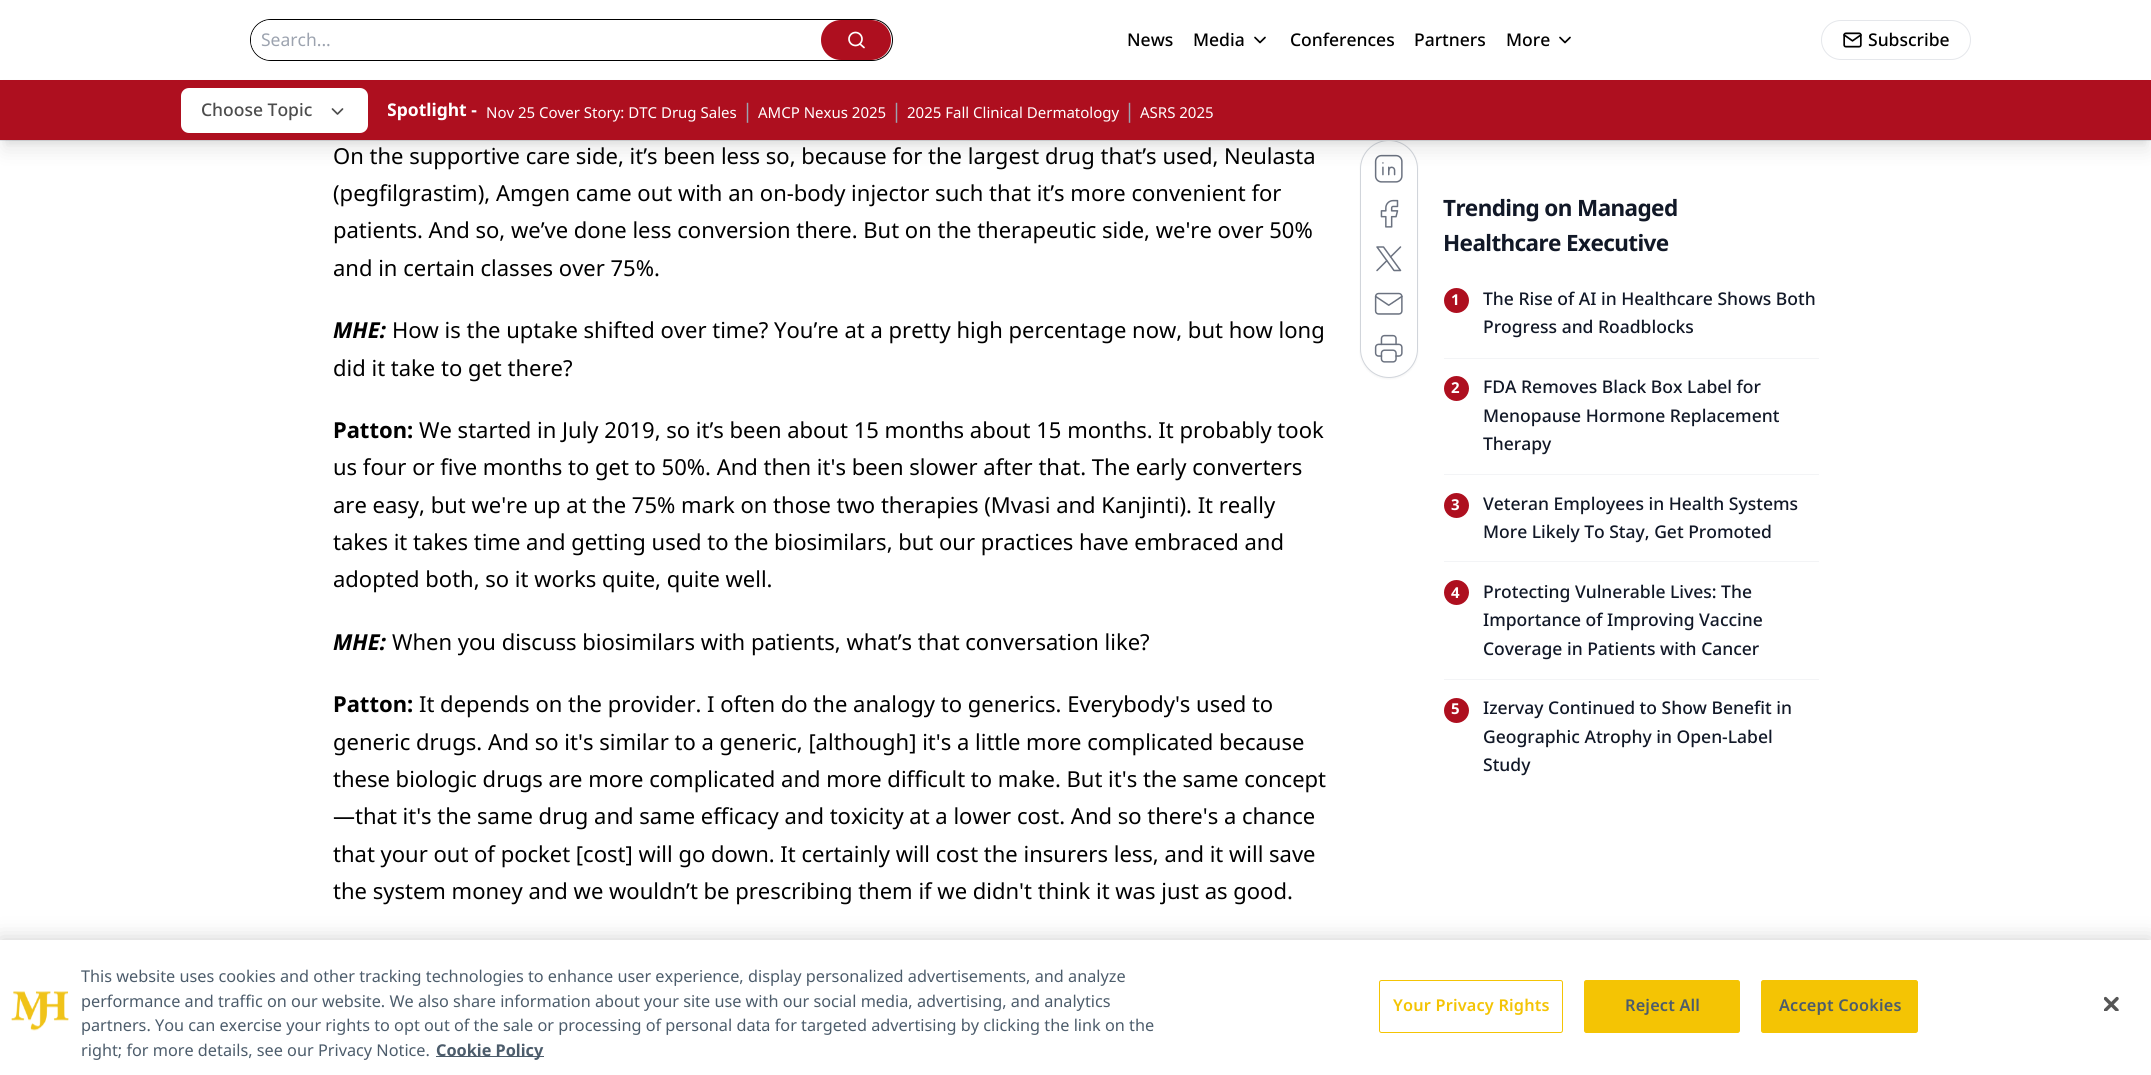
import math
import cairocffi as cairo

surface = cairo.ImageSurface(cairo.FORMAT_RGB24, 2151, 1075)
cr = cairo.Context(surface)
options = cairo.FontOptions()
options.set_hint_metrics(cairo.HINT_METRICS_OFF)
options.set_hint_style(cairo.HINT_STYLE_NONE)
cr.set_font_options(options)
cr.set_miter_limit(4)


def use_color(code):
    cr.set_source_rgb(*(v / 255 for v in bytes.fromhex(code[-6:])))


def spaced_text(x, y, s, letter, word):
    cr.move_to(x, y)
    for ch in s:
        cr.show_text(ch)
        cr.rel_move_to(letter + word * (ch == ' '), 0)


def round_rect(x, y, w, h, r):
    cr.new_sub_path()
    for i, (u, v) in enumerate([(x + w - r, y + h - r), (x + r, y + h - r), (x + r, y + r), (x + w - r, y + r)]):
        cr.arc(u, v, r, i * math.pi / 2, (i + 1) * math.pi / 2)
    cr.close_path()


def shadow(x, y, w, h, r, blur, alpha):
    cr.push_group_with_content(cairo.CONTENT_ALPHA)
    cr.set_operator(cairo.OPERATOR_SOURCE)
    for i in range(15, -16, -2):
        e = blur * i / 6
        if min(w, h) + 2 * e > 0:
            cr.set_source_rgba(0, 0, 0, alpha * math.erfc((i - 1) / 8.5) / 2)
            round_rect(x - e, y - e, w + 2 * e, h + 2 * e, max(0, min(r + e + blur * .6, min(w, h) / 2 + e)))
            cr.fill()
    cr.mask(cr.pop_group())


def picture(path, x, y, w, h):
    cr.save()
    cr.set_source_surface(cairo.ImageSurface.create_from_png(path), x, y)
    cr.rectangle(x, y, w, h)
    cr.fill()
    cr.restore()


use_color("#ffffff")
cr.paint()
use_color("#000000")
shadow(1360, 141, 58, 238, 29, 1, 0.05)
use_color("#ffffff")
round_rect(1360.5, 140.5, 57, 237, 28.5)
cr.fill_preserve()
use_color("#d1d5db")
cr.set_line_width(1)
cr.stroke()
use_color("#e5e7eb")
cr.rectangle(0, 140, 2151, 1)
cr.fill()
round_rect(250.5, 19.5, 642, 41, 20.5)
use_color("#000000")
cr.stroke()
use_color("#ffffff")
round_rect(251, 20, 640, 40, 20)
cr.fill()
cr.select_font_face("Noto Sans")
cr.set_font_size(17.5)
use_color("#9ca3af")
cr.move_to(261, 46)
cr.show_text("Search...")
use_color("#ae0f1f")
round_rect(821, 20, 70, 40, 20)
cr.fill()
cr.arc(855.5, 39, 6.5, 0, 2 * math.pi)
use_color("#ffffff")
cr.set_line_width(1.7)
cr.stroke()
cr.new_path()
cr.move_to(864, 47.5)
cr.line_to(860, 44)
cr.set_line_cap(cairo.LINE_CAP_ROUND)
cr.set_line_join(cairo.LINE_JOIN_ROUND)
cr.stroke()
cr.select_font_face("Noto Sans Medium")
use_color("#000000")
cr.move_to(1127, 46)
cr.show_text("News")
cr.move_to(1193, 46)
cr.show_text("Media")
cr.new_path()
cr.move_to(1255, 37.5)
cr.line_to(1260, 42.5)
cr.line_to(1265, 37.5)
cr.stroke()
cr.move_to(1290, 46)
cr.show_text("Conferences")
cr.move_to(1414, 46)
cr.show_text("Partners")
cr.move_to(1506, 46)
cr.show_text("More")
cr.new_path()
cr.move_to(1560, 37.5)
cr.line_to(1565, 42.5)
cr.line_to(1570, 37.5)
cr.stroke()
round_rect(1821.5, 20.5, 149, 39, 19.5)
use_color("#e5e7eb")
cr.set_line_width(1)
cr.set_line_cap(cairo.LINE_CAP_BUTT)
cr.set_line_join(cairo.LINE_JOIN_MITER)
cr.stroke()
picture("img1.png", 1843, 32, 19, 16)
use_color("#000000")
cr.move_to(1868, 46)
cr.show_text("Subscribe")
use_color("#000000")
shadow(5, 90, 2141, 50, 0, 4, 0.1)
picture("img2.png", 1374, 154, 29, 29)
shadow(4, 96, 2144, 53, 0, 9.5, 0.1)
use_color("#ae0f1f")
cr.rectangle(0, 80, 2151, 60)
cr.fill()
use_color("#ffffff")
round_rect(181, 88, 187, 45, 8)
cr.fill()
use_color("#4d4d4d")
cr.move_to(201, 116)
cr.show_text("Choose Topic")
cr.new_path()
cr.move_to(332.5, 109)
cr.line_to(337.5, 114)
cr.line_to(342.5, 109)
cr.set_line_width(1.7)
cr.set_line_cap(cairo.LINE_CAP_ROUND)
cr.set_line_join(cairo.LINE_JOIN_ROUND)
cr.stroke()
cr.save()
cr.rectangle(388, 88, 826, 45)
cr.clip()
cr.select_font_face("Noto Sans", cairo.FONT_SLANT_NORMAL, cairo.FONT_WEIGHT_BOLD)
use_color("#ffffff")
cr.move_to(387, 116)
cr.show_text("Spotlight -")
cr.restore()
cr.select_font_face("Noto Sans")
cr.set_font_size(15)
use_color("#ffffff")
cr.move_to(486, 118)
cr.show_text("Nov 25 Cover Story: DTC Drug Sales")
cr.set_font_size(20)
use_color("#9ca3af")
cr.move_to(742, 118)
cr.show_text("|")
cr.set_font_size(15)
use_color("#ffffff")
cr.move_to(758, 118)
cr.show_text("AMCP Nexus 2025")
cr.set_font_size(20)
use_color("#9ca3af")
cr.move_to(891, 118)
cr.show_text("|")
cr.set_font_size(15)
use_color("#ffffff")
cr.move_to(907, 118)
cr.show_text("2025 Fall Clinical Dermatology")
cr.set_font_size(20)
use_color("#9ca3af")
cr.move_to(1124, 118)
cr.show_text("|")
cr.set_font_size(15)
use_color("#ffffff")
cr.move_to(1140, 118)
cr.show_text("ASRS 2025")
cr.set_font_size(22)
use_color("#000000")
cr.move_to(333, 164)
cr.show_text("On the supportive care side, it’s been less so, because for the largest drug that’s used, Neulasta")
cr.move_to(333, 201)
cr.show_text("(pegfilgrastim), Amgen came out with an on-body injector such that it’s more convenient for")
cr.move_to(333, 238)
cr.show_text("patients. And so, we’ve done less conversion there. But on the therapeutic side, we're over 50%")
cr.move_to(333, 276)
cr.show_text("and in certain classes over 75%.")
cr.select_font_face("Noto Sans", cairo.FONT_SLANT_ITALIC, cairo.FONT_WEIGHT_BOLD)
cr.move_to(333, 338)
cr.show_text("MHE:")
cr.select_font_face("Noto Sans")
cr.move_to(392, 338)
cr.show_text("How is the uptake shifted over time? You’re at a pretty high percentage now, but how long")
cr.move_to(333, 376)
cr.show_text("did it take to get there?")
cr.select_font_face("Noto Sans", cairo.FONT_SLANT_NORMAL, cairo.FONT_WEIGHT_BOLD)
cr.move_to(333, 438)
cr.show_text("Patton:")
cr.select_font_face("Noto Sans")
cr.move_to(419, 438)
cr.show_text("We started in July 2019, so it’s been about 15 months about 15 months. It probably took")
cr.move_to(333, 475)
cr.show_text("us four or five months to get to 50%. And then it's been slower after that. The early converters")
cr.move_to(333, 513)
cr.show_text("are easy, but we're up at the 75% mark on those two therapies (Mvasi and Kanjinti). It really")
cr.move_to(333, 550)
cr.show_text("takes it takes time and getting used to the biosimilars, but our practices have embraced and")
cr.move_to(333, 587)
cr.show_text("adopted both, so it works quite, quite well.")
cr.select_font_face("Noto Sans", cairo.FONT_SLANT_ITALIC, cairo.FONT_WEIGHT_BOLD)
cr.move_to(333, 650)
cr.show_text("MHE:")
cr.select_font_face("Noto Sans")
cr.move_to(392, 650)
cr.show_text("When you discuss biosimilars with patients, what’s that conversation like?")
cr.select_font_face("Noto Sans", cairo.FONT_SLANT_NORMAL, cairo.FONT_WEIGHT_BOLD)
cr.move_to(333, 712)
cr.show_text("Patton:")
cr.select_font_face("Noto Sans")
cr.move_to(419, 712)
cr.show_text("It depends on the provider. I often do the analogy to generics. Everybody's used to")
cr.move_to(333, 750)
cr.show_text("generic drugs. And so it's similar to a generic, [although] it's a little more complicated because")
cr.move_to(333, 787)
cr.show_text("these biologic drugs are more complicated and more difficult to make. But it's the same concept")
cr.move_to(333, 824)
cr.show_text("—that it's the same drug and same efficacy and toxicity at a lower cost. And so there's a chance")
cr.move_to(333, 862)
cr.show_text("that your out of pocket [cost] will go down. It certainly will cost the insurers less, and it will save")
cr.move_to(333, 899)
cr.show_text("the system money and we wouldn’t be prescribing them if we didn't think it was just as good.")
picture("img3.png", 1380, 199, 19, 29)
cr.new_path()
cr.move_to(1377, 247)
cr.line_to(1394, 270.5)
cr.line_to(1400.5, 270.5)
cr.line_to(1383.5, 247)
cr.close_path()
cr.move_to(1377, 270.5)
cr.line_to(1387, 260.5)
cr.move_to(1390.5, 257)
cr.line_to(1400.5, 247)
use_color("#6b7280")
cr.set_line_width(1.5)
cr.stroke()
picture("img4.png", 1374, 292, 29, 23)
picture("img5.png", 1374, 334, 29, 29)
cr.select_font_face("Noto Sans", cairo.FONT_SLANT_NORMAL, cairo.FONT_WEIGHT_BOLD)
cr.set_font_size(22.5)
use_color("#111827")
spaced_text(1443, 216, "Trending on Managed", -0.6, 0)
spaced_text(1443, 251, "Healthcare Executive", -0.6, 0)
use_color("#ae0f1f")
cr.new_path()
cr.arc(1456.5, 300.5, 12.5, 0, 2 * math.pi)
cr.fill()
cr.set_font_size(15)
use_color("#ffffff")
cr.move_to(1451, 305)
cr.show_text("1")
cr.select_font_face("Noto Sans Medium")
cr.set_font_size(17.5)
use_color("#111827")
cr.move_to(1483, 305)
cr.show_text("The Rise of AI in Healthcare Shows Both")
cr.move_to(1483, 333)
cr.show_text("Progress and Roadblocks")
use_color("#f3f4f6")
cr.rectangle(1444, 358, 375, 1)
cr.fill()
use_color("#ae0f1f")
cr.arc(1456.5, 388.5, 12.5, 0, 2 * math.pi)
cr.fill()
cr.select_font_face("Noto Sans", cairo.FONT_SLANT_NORMAL, cairo.FONT_WEIGHT_BOLD)
cr.set_font_size(15)
use_color("#ffffff")
cr.move_to(1451, 393)
cr.show_text("2")
cr.select_font_face("Noto Sans Medium")
cr.set_font_size(17.5)
use_color("#111827")
cr.move_to(1483, 393)
cr.show_text("FDA Removes Black Box Label for")
cr.move_to(1483, 422)
cr.show_text("Menopause Hormone Replacement")
cr.move_to(1483, 450)
cr.show_text("Therapy")
use_color("#f3f4f6")
cr.rectangle(1444, 474, 375, 1)
cr.fill()
use_color("#ae0f1f")
cr.arc(1456.5, 505.5, 12.5, 0, 2 * math.pi)
cr.fill()
cr.select_font_face("Noto Sans", cairo.FONT_SLANT_NORMAL, cairo.FONT_WEIGHT_BOLD)
cr.set_font_size(15)
use_color("#ffffff")
cr.move_to(1451, 510)
cr.show_text("3")
cr.select_font_face("Noto Sans Medium")
cr.set_font_size(17.5)
use_color("#111827")
cr.move_to(1483, 510)
cr.show_text("Veteran Employees in Health Systems")
cr.move_to(1483, 538)
cr.show_text("More Likely To Stay, Get Promoted")
use_color("#f3f4f6")
cr.rectangle(1444, 561, 375, 1)
cr.fill()
use_color("#ae0f1f")
cr.arc(1456.5, 592.5, 12.5, 0, 2 * math.pi)
cr.fill()
cr.select_font_face("Noto Sans", cairo.FONT_SLANT_NORMAL, cairo.FONT_WEIGHT_BOLD)
cr.set_font_size(15)
use_color("#ffffff")
cr.move_to(1451, 598)
cr.show_text("4")
cr.select_font_face("Noto Sans Medium")
cr.set_font_size(17.5)
use_color("#111827")
cr.move_to(1483, 598)
cr.show_text("Protecting Vulnerable Lives: The")
cr.move_to(1483, 626)
cr.show_text("Importance of Improving Vaccine")
cr.move_to(1483, 655)
cr.show_text("Coverage in Patients with Cancer")
use_color("#f3f4f6")
cr.rectangle(1444, 679, 375, 1)
cr.fill()
use_color("#ae0f1f")
cr.arc(1456.5, 710.5, 12.5, 0, 2 * math.pi)
cr.fill()
cr.select_font_face("Noto Sans", cairo.FONT_SLANT_NORMAL, cairo.FONT_WEIGHT_BOLD)
cr.set_font_size(15)
use_color("#ffffff")
cr.move_to(1451, 714)
cr.show_text("5")
cr.select_font_face("Noto Sans Medium")
cr.set_font_size(17.5)
use_color("#111827")
cr.move_to(1483, 714)
cr.show_text("Izervay Continued to Show Benefit in")
cr.move_to(1483, 743)
cr.show_text("Geographic Atrophy in Open-Label")
cr.move_to(1483, 771)
cr.show_text("Study")
use_color("#000000")
shadow(0, 940, 2151, 135, 0, 11, 0.2)
use_color("#ffffff")
cr.rectangle(0, 940, 2151, 135)
cr.fill()
picture("img6.png", 11, 991, 58, 40)
cr.select_font_face("Noto Sans")
cr.set_font_size(16.25)
use_color("#4c5c6b")
cr.move_to(81, 982)
cr.show_text("This website uses cookies and other tracking technologies to enhance user experience, display personalized advertisements, and analyze")
cr.move_to(81, 1007)
cr.show_text("performance and traffic on our website. We also share information about your site use with our social media, advertising, and analytics")
cr.move_to(81, 1031)
cr.show_text("partners. You can exercise your rights to opt out of the sale or processing of personal data for targeted advertising by clicking the link on the")
cr.move_to(81, 1056)
cr.show_text("right; for more details, see our Privacy Notice.")
cr.rectangle(436, 1056, 108, 1)
cr.fill()
cr.select_font_face("Noto Sans", cairo.FONT_SLANT_NORMAL, cairo.FONT_WEIGHT_BOLD)
cr.move_to(436, 1056)
cr.show_text("Cookie Policy")
round_rect(1379.5, 980.5, 183, 52, 2)
use_color("#f4c404")
cr.set_line_width(1)
cr.set_line_cap(cairo.LINE_CAP_BUTT)
cr.set_line_join(cairo.LINE_JOIN_MITER)
cr.stroke()
cr.select_font_face("Noto Sans SemiBold")
spaced_text(1393, 1011, "Your Privacy Rights", 0.2, 0)
round_rect(1584.5, 980.5, 155, 52, 2)
cr.fill_preserve()
cr.stroke()
use_color("#4c5c6b")
spaced_text(1625, 1011, "Reject All", 0.2, 0)
use_color("#f4c404")
round_rect(1761.5, 980.5, 156, 52, 2)
cr.fill_preserve()
cr.stroke()
use_color("#4c5c6b")
spaced_text(1779, 1011, "Accept Cookies", 0.2, 0)
picture("img7.png", 2104, 996, 15, 15)
surface.write_to_png("result.png")
